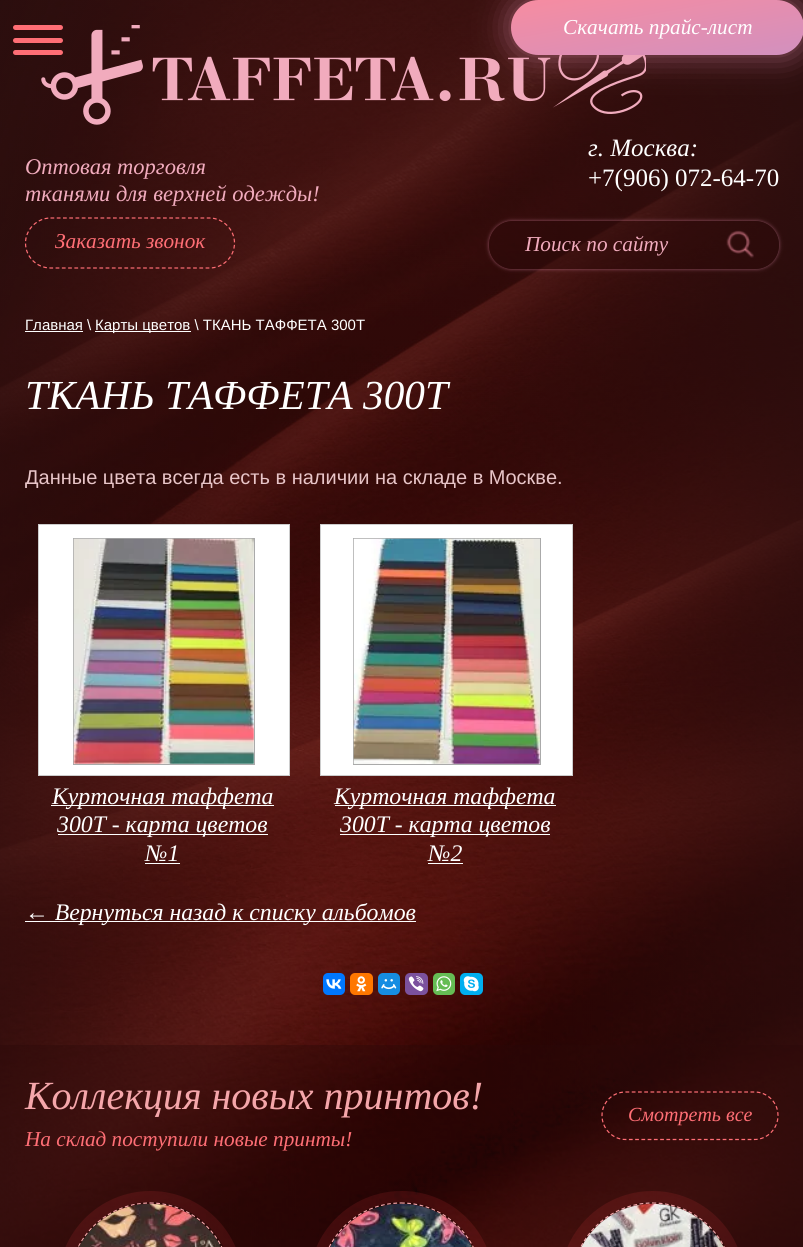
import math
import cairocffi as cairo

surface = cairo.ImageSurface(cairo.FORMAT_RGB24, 803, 1247)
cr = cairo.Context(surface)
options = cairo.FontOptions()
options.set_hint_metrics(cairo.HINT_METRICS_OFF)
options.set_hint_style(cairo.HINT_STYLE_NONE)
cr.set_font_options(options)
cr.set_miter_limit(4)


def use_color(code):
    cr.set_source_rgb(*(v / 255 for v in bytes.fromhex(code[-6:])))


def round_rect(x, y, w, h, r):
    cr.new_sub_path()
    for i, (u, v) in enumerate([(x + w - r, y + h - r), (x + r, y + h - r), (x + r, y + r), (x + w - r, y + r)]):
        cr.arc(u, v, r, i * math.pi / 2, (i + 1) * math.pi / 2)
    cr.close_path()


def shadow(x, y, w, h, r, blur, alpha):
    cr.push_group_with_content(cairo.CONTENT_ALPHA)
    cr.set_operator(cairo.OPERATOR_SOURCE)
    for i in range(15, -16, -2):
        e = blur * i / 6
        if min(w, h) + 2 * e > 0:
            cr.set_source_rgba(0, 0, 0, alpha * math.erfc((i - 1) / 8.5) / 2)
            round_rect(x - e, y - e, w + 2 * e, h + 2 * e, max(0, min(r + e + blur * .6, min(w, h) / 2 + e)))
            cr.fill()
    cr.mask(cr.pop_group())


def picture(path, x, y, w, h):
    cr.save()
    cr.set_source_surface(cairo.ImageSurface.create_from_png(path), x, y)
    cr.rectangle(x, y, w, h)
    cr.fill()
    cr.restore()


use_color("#ffffff")
cr.paint()
picture("img1.png", 0, 0, 803, 1247)
picture("img2.png", 41, 25, 605, 100)
use_color("#ff6e75")
round_rect(13, 25, 50, 5, 2.5)
cr.fill()
round_rect(13, 38, 50, 5, 2.5)
cr.fill()
round_rect(13, 50, 50, 5, 2.5)
cr.fill()
use_color("#e48eaf")
shadow(511, 0, 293, 55, 27.5, 16, 0.55)
gradient = cairo.LinearGradient(648, -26, 667, 81)
gradient.add_color_stop_rgba(0, 0.969, 0.549, 0.627, 1)
gradient.add_color_stop_rgba(1, 0.82, 0.565, 0.749, 1)
cr.set_source(gradient)
round_rect(511, 0, 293, 55, 27.5)
cr.fill()
cr.select_font_face("Liberation Serif", cairo.FONT_SLANT_ITALIC)
cr.set_font_size(21.25)
use_color("#ffffff")
cr.move_to(563, 34)
cr.show_text("Скачать прайс-лист")
cr.set_font_size(22.5)
use_color("#f1abbd")
cr.move_to(25, 174)
cr.show_text("Оптовая торговля")
cr.move_to(25, 201)
cr.show_text("тканями для верхней одежды!")
cr.set_font_size(25)
use_color("#ffffff")
cr.move_to(588, 156)
cr.show_text("г. Москва:")
cr.select_font_face("Liberation Serif")
cr.move_to(588, 186)
cr.show_text("+7(906) 072-64-70")
cr.new_path()
cr.move_to(50.5, 218)
cr.line_to(209.5, 218)
cr.curve_to(223, 218, 234.5, 229.5, 234.5, 243)
cr.curve_to(234.5, 257, 223, 268, 209.5, 268)
cr.line_to(50.5, 268)
cr.curve_to(37, 268, 25.5, 257, 25.5, 243)
cr.curve_to(25.5, 229.5, 37, 218, 50.5, 218)
cr.close_path()
use_color("#ff6e75")
cr.set_line_width(1.2)
cr.set_dash([3.75, 2.5])
cr.stroke()
cr.select_font_face("Liberation Serif", cairo.FONT_SLANT_ITALIC)
cr.set_font_size(21.25)
cr.move_to(55, 248)
cr.show_text("Заказать звонок")
cr.save()
cr.set_fill_rule(cairo.FILL_RULE_EVEN_ODD)
cr.new_path()
cr.move_to(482, 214)
cr.line_to(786, 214)
cr.line_to(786, 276)
cr.line_to(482, 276)
cr.close_path()
cr.move_to(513, 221)
cr.line_to(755, 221)
cr.curve_to(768.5, 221, 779, 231.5, 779, 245)
cr.curve_to(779, 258.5, 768.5, 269, 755, 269)
cr.line_to(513, 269)
cr.curve_to(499.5, 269, 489, 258.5, 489, 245)
cr.curve_to(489, 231.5, 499.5, 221, 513, 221)
cr.close_path()
cr.clip()
use_color("#e48eaf")
shadow(489, 221, 290, 48, 24, 2, 0.55)
cr.restore()
cr.set_source_rgba(0.169, 0.039, 0.039, 0.38)
round_rect(489, 221, 290, 48, 24)
cr.fill()
use_color("#f1abbd")
cr.move_to(525, 251)
cr.show_text("Поиск по сайту")
picture("img3.png", 726, 230, 28, 28)
cr.select_font_face("Liberation Sans")
cr.set_font_size(15)
use_color("#ffffff")
cr.move_to(25, 330)
cr.show_text("Главная \\")
cr.rectangle(25, 331, 58, 1)
cr.fill()
cr.rectangle(95, 331, 96, 1)
cr.fill()
cr.move_to(95, 330)
cr.show_text("Карты цветов \\ ТКАНЬ ТАФФЕТА 300Т")
cr.select_font_face("Liberation Serif", cairo.FONT_SLANT_ITALIC)
cr.set_font_size(41.25)
cr.move_to(25, 409)
cr.show_text("ТКАНЬ ТАФФЕТА 300Т")
cr.select_font_face("Liberation Sans")
cr.set_font_size(20)
use_color("#e8c5c8")
cr.move_to(25, 484)
cr.show_text("Данные цвета всегда есть в наличии на складе в Москве.")
use_color("#ffffff")
cr.rectangle(38.5, 524.5, 251, 251)
cr.fill_preserve()
use_color("#cccccc")
cr.set_line_width(1)
cr.set_dash([])
cr.stroke()
cr.rectangle(73.5, 538.5, 181, 226)
use_color("#aaaaaa")
cr.stroke()
picture("img4.png", 73, 538, 181, 226)
use_color("#ffffff")
cr.rectangle(51, 805, 223, 1)
cr.fill()
cr.select_font_face("Liberation Serif", cairo.FONT_SLANT_ITALIC)
cr.set_font_size(23.75)
cr.move_to(52, 804)
cr.show_text("Курточная таффета")
cr.rectangle(58, 834, 210, 1)
cr.fill()
cr.move_to(57, 832)
cr.show_text("300Т - карта цветов")
cr.move_to(145, 861)
cr.show_text("№1")
cr.rectangle(145, 863, 35, 1)
cr.fill()
cr.rectangle(320.5, 524.5, 252, 251)
cr.fill_preserve()
use_color("#cccccc")
cr.stroke()
cr.rectangle(353.5, 538.5, 187, 226)
use_color("#aaaaaa")
cr.stroke()
picture("img5.png", 353, 538, 187, 226)
use_color("#ffffff")
cr.rectangle(335, 805, 221, 1)
cr.fill()
cr.move_to(334, 804)
cr.show_text("Курточная таффета")
cr.rectangle(340, 834, 210, 1)
cr.fill()
cr.move_to(340, 832)
cr.show_text("300Т - карта цветов")
cr.move_to(428, 861)
cr.show_text("№2")
cr.rectangle(428, 863, 35, 1)
cr.fill()
cr.rectangle(25, 921, 391, 1)
cr.fill()
cr.move_to(25, 920)
cr.show_text("← Вернуться назад к списку альбомов")
use_color("#0077ff")
round_rect(323, 973, 22, 22, 5)
cr.fill()
picture("img6.png", 326, 979, 16, 10)
use_color("#ff7700")
round_rect(350, 973, 23, 22, 5)
cr.fill()
picture("img7.png", 356, 976, 11, 16)
use_color("#168de2")
round_rect(378, 973, 22, 22, 5)
cr.fill()
picture("img8.png", 381, 979, 16, 11)
use_color("#7b519d")
round_rect(405, 973, 23, 22, 5)
cr.fill()
picture("img9.png", 408, 976, 16, 16)
use_color("#65bc54")
round_rect(433, 973, 22, 22, 5)
cr.fill()
picture("img10.png", 436, 976, 16, 16)
use_color("#00aff0")
round_rect(460, 973, 23, 22, 5)
cr.fill()
picture("img11.png", 463, 976, 16, 16)
cr.set_source_rgba(0.169, 0.039, 0.039, 0.38)
cr.rectangle(0, 1045, 803, 202)
cr.fill()
cr.set_font_size(40)
use_color("#f5a6aa")
cr.move_to(25, 1109)
cr.show_text("Коллекция новых принтов!")
cr.new_path()
cr.move_to(625.5, 1092)
cr.line_to(754.5, 1092)
cr.curve_to(767.5, 1092, 778, 1102.5, 778, 1115.5)
cr.curve_to(778, 1128.5, 767.5, 1139.5, 754.5, 1139.5)
cr.line_to(625.5, 1139.5)
cr.curve_to(612.5, 1139.5, 602, 1128.5, 602, 1115.5)
cr.curve_to(602, 1102.5, 612.5, 1092, 625.5, 1092)
cr.close_path()
use_color("#ff6e75")
cr.set_line_width(1.2)
cr.set_dash([3.75, 2.5])
cr.stroke()
cr.set_font_size(20)
cr.move_to(628, 1121)
cr.show_text("Смотреть все")
cr.set_font_size(21.25)
cr.move_to(25, 1146)
cr.show_text("На склад поступили новые принты!")
round_rect(63.5, 1196.5, 174, 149, 87)
cr.set_source_rgba(0.91, 0.247, 0.278, 0.14)
cr.set_line_width(11)
cr.set_dash([])
cr.stroke()
cr.new_path()
cr.move_to(150, 1203)
cr.curve_to(194.5, 1203, 230.5, 1239, 230.5, 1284)
cr.curve_to(230.5, 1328.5, 194.5, 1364.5, 150, 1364.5)
cr.curve_to(105.5, 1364.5, 69.5, 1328.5, 69.5, 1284)
cr.curve_to(69.5, 1239, 105.5, 1203, 150, 1203)
cr.close_path()
use_color("#f5a6aa")
cr.set_line_width(1.2)
cr.set_dash([3.75, 2.5])
cr.stroke()
picture("img12.png", 79, 1204, 142, 43)
round_rect(314.5, 1196.5, 174, 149, 87)
cr.set_source_rgba(0.91, 0.247, 0.278, 0.14)
cr.set_line_width(11)
cr.set_dash([])
cr.stroke()
cr.new_path()
cr.move_to(401, 1203)
cr.curve_to(446, 1203, 482, 1239, 482, 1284)
cr.curve_to(482, 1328.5, 446, 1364.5, 401, 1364.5)
cr.curve_to(356.5, 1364.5, 320.5, 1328.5, 320.5, 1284)
cr.curve_to(320.5, 1239, 356.5, 1203, 401, 1203)
cr.close_path()
use_color("#f5a6aa")
cr.set_line_width(1.2)
cr.set_dash([3.75, 2.5])
cr.stroke()
picture("img13.png", 330, 1203, 143, 44)
round_rect(565.5, 1196.5, 174, 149, 87)
cr.set_source_rgba(0.91, 0.247, 0.278, 0.14)
cr.set_line_width(11)
cr.set_dash([])
cr.stroke()
cr.new_path()
cr.move_to(652.5, 1203)
cr.curve_to(697, 1203, 733, 1239, 733, 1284)
cr.curve_to(733, 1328.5, 697, 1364.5, 652.5, 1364.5)
cr.curve_to(608, 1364.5, 572, 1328.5, 572, 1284)
cr.curve_to(572, 1239, 608, 1203, 652.5, 1203)
cr.close_path()
use_color("#f5a6aa")
cr.set_line_width(1.2)
cr.set_dash([3.75, 2.5])
cr.stroke()
picture("img14.png", 581, 1203, 143, 44)
surface.write_to_png("result.png")
